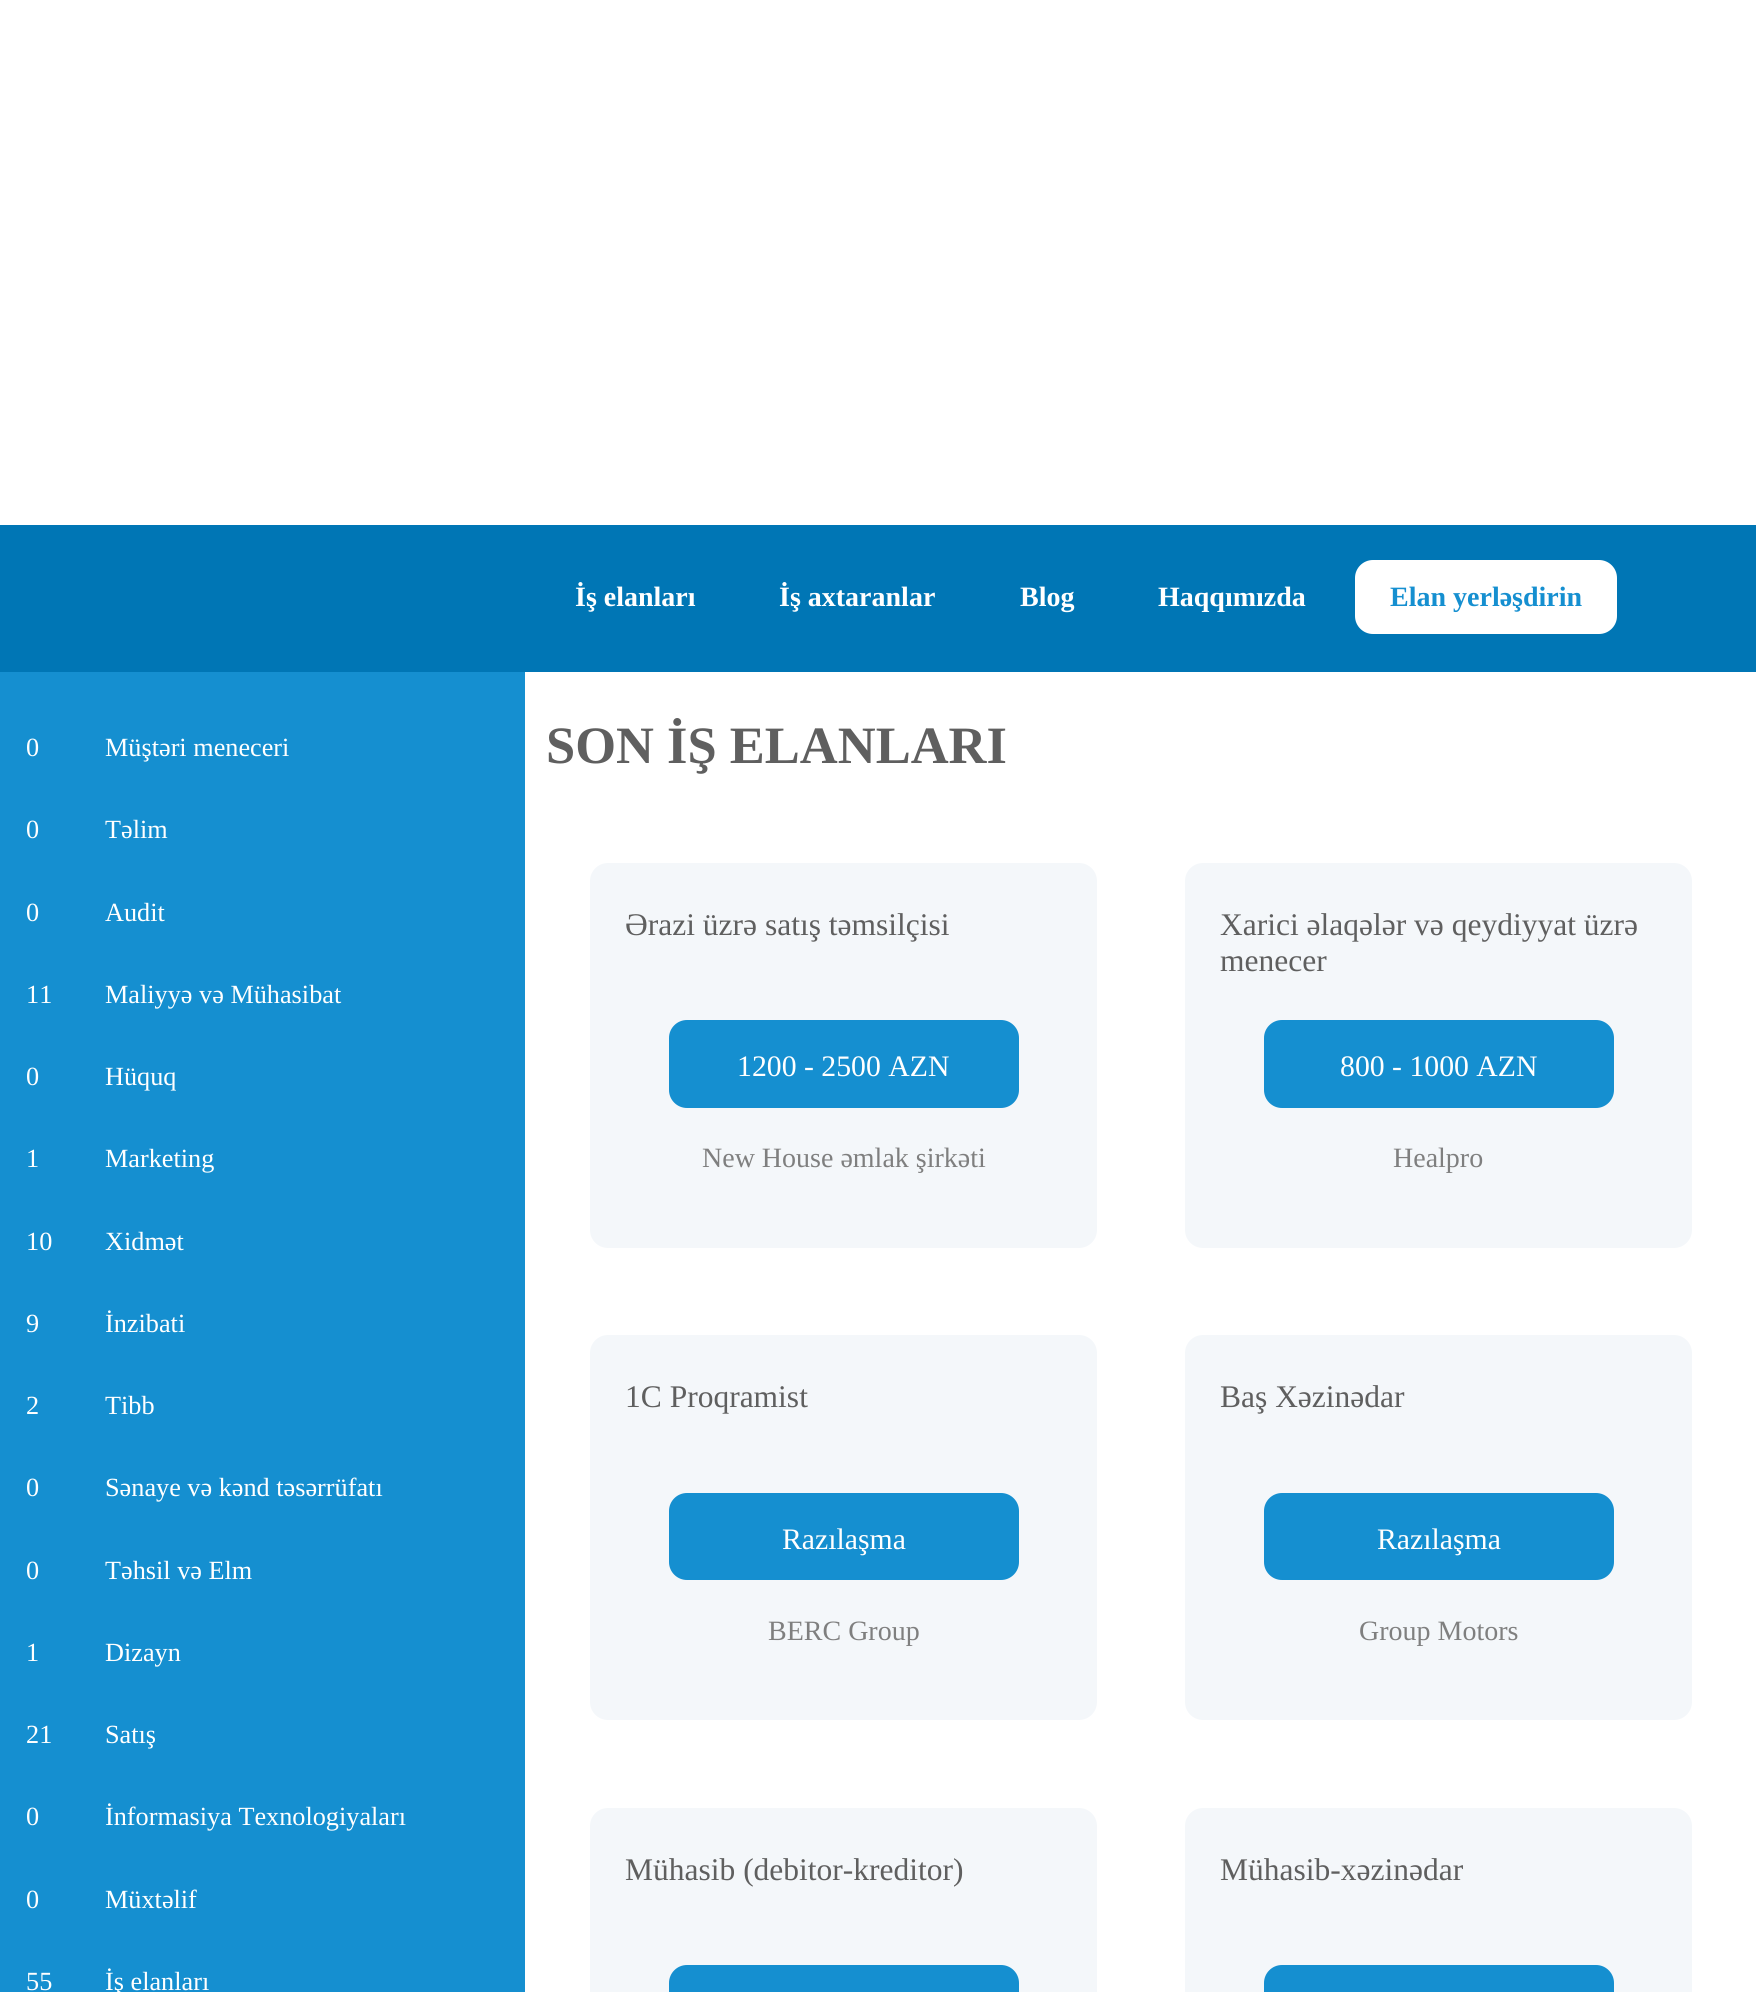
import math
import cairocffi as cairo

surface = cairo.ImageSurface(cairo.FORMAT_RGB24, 1756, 1992)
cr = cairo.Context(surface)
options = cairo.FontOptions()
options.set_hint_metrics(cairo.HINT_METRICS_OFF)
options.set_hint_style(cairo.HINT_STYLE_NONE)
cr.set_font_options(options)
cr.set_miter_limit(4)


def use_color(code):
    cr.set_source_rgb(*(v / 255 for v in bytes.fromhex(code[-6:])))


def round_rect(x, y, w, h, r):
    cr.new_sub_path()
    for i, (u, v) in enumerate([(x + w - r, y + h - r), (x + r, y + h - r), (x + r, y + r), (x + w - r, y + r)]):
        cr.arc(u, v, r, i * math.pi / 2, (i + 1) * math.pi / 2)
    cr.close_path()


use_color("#ffffff")
cr.paint()
use_color("#0076b5")
cr.rectangle(0, 525, 1756, 147)
cr.fill()
cr.select_font_face("Liberation Serif", cairo.FONT_SLANT_NORMAL, cairo.FONT_WEIGHT_BOLD)
cr.set_font_size(28)
use_color("#ffffff")
cr.move_to(575, 606)
cr.show_text("İş elanları")
cr.move_to(779, 606)
cr.show_text("İş axtaranlar")
cr.move_to(1020, 606)
cr.show_text("Blog")
cr.move_to(1158, 606)
cr.show_text("Haqqımızda")
round_rect(1355, 560, 262, 74, 18)
cr.fill()
use_color("#158fd0")
cr.move_to(1390, 606)
cr.show_text("Elan yerləşdirin")
cr.rectangle(0, 672, 525, 1320)
cr.fill()
cr.select_font_face("Liberation Serif")
cr.set_font_size(26.25)
use_color("#ffffff")
cr.move_to(26, 756)
cr.show_text("0")
cr.move_to(105, 756)
cr.show_text("Müştəri meneceri")
cr.move_to(26, 838)
cr.show_text("0")
cr.move_to(105, 838)
cr.show_text("Təlim")
cr.move_to(26, 921)
cr.show_text("0")
cr.move_to(105, 921)
cr.show_text("Audit")
cr.move_to(26, 1003)
cr.show_text("11")
cr.move_to(105, 1003)
cr.show_text("Maliyyə və Mühasibat")
cr.move_to(26, 1085)
cr.show_text("0")
cr.move_to(105, 1085)
cr.show_text("Hüquq")
cr.move_to(26, 1167)
cr.show_text("1")
cr.move_to(105, 1167)
cr.show_text("Marketing")
cr.move_to(26, 1250)
cr.show_text("10")
cr.move_to(105, 1250)
cr.show_text("Xidmət")
cr.move_to(26, 1332)
cr.show_text("9")
cr.move_to(105, 1332)
cr.show_text("İnzibati")
cr.move_to(26, 1414)
cr.show_text("2")
cr.move_to(105, 1414)
cr.show_text("Tibb")
cr.move_to(26, 1496)
cr.show_text("0")
cr.move_to(105, 1496)
cr.show_text("Sənaye və kənd təsərrüfatı")
cr.move_to(26, 1579)
cr.show_text("0")
cr.move_to(105, 1579)
cr.show_text("Təhsil və Elm")
cr.move_to(26, 1661)
cr.show_text("1")
cr.move_to(105, 1661)
cr.show_text("Dizayn")
cr.move_to(26, 1743)
cr.show_text("21")
cr.move_to(105, 1743)
cr.show_text("Satış")
cr.move_to(26, 1825)
cr.show_text("0")
cr.move_to(105, 1825)
cr.show_text("İnformasiya Texnologiyaları")
cr.move_to(26, 1908)
cr.show_text("0")
cr.move_to(105, 1908)
cr.show_text("Müxtəlif")
cr.move_to(26, 1990)
cr.show_text("55")
cr.move_to(105, 1990)
cr.show_text("İş elanları")
cr.select_font_face("Liberation Serif", cairo.FONT_SLANT_NORMAL, cairo.FONT_WEIGHT_BOLD)
cr.set_font_size(52.5)
use_color("#5f5f5f")
cr.move_to(546, 763)
cr.show_text("SON İŞ ELANLARI")
use_color("#f4f7fa")
round_rect(590, 863, 507, 385, 18)
cr.fill()
cr.select_font_face("Liberation Serif")
cr.set_font_size(31.5)
use_color("#5f5f5f")
cr.move_to(625, 935)
cr.show_text("Ərazi üzrə satış təmsilçisi")
use_color("#158fd0")
round_rect(669, 1020, 350, 88, 18)
cr.fill()
cr.set_font_size(29.75)
use_color("#ffffff")
cr.move_to(737, 1076)
cr.show_text("1200 - 2500 AZN")
cr.set_font_size(28)
use_color("#7f7f7f")
cr.move_to(702, 1167)
cr.show_text("New House əmlak şirkəti")
use_color("#f4f7fa")
round_rect(1185, 863, 507, 385, 18)
cr.fill()
cr.set_font_size(31.5)
use_color("#5f5f5f")
cr.move_to(1220, 935)
cr.show_text("Xarici əlaqələr və qeydiyyat üzrə")
cr.move_to(1220, 971)
cr.show_text("menecer")
use_color("#158fd0")
round_rect(1264, 1020, 350, 88, 18)
cr.fill()
cr.set_font_size(29.75)
use_color("#ffffff")
cr.move_to(1340, 1076)
cr.show_text("800 - 1000 AZN")
cr.set_font_size(28)
use_color("#7f7f7f")
cr.move_to(1393, 1167)
cr.show_text("Healpro")
use_color("#f4f7fa")
round_rect(590, 1335, 507, 385, 18)
cr.fill()
cr.set_font_size(31.5)
use_color("#5f5f5f")
cr.move_to(625, 1407)
cr.show_text("1C Proqramist")
use_color("#158fd0")
round_rect(669, 1493, 350, 87, 18)
cr.fill()
cr.set_font_size(29.75)
use_color("#ffffff")
cr.move_to(782, 1549)
cr.show_text("Razılaşma")
cr.set_font_size(28)
use_color("#7f7f7f")
cr.move_to(768, 1640)
cr.show_text("BERC Group")
use_color("#f4f7fa")
round_rect(1185, 1335, 507, 385, 18)
cr.fill()
cr.set_font_size(31.5)
use_color("#5f5f5f")
cr.move_to(1220, 1407)
cr.show_text("Baş Xəzinədar")
use_color("#158fd0")
round_rect(1264, 1493, 350, 87, 18)
cr.fill()
cr.set_font_size(29.75)
use_color("#ffffff")
cr.move_to(1377, 1549)
cr.show_text("Razılaşma")
cr.set_font_size(28)
use_color("#7f7f7f")
cr.move_to(1359, 1640)
cr.show_text("Group Motors")
use_color("#f4f7fa")
round_rect(590, 1808, 507, 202, 18)
cr.fill()
cr.set_font_size(31.5)
use_color("#5f5f5f")
cr.move_to(625, 1880)
cr.show_text("Mühasib (debitor-kreditor)")
use_color("#158fd0")
round_rect(669, 1965, 350, 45, 18)
cr.fill()
use_color("#f4f7fa")
round_rect(1185, 1808, 507, 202, 18)
cr.fill()
use_color("#5f5f5f")
cr.move_to(1220, 1880)
cr.show_text("Mühasib-xəzinədar")
use_color("#158fd0")
round_rect(1264, 1965, 350, 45, 18)
cr.fill()
surface.write_to_png("result.png")
